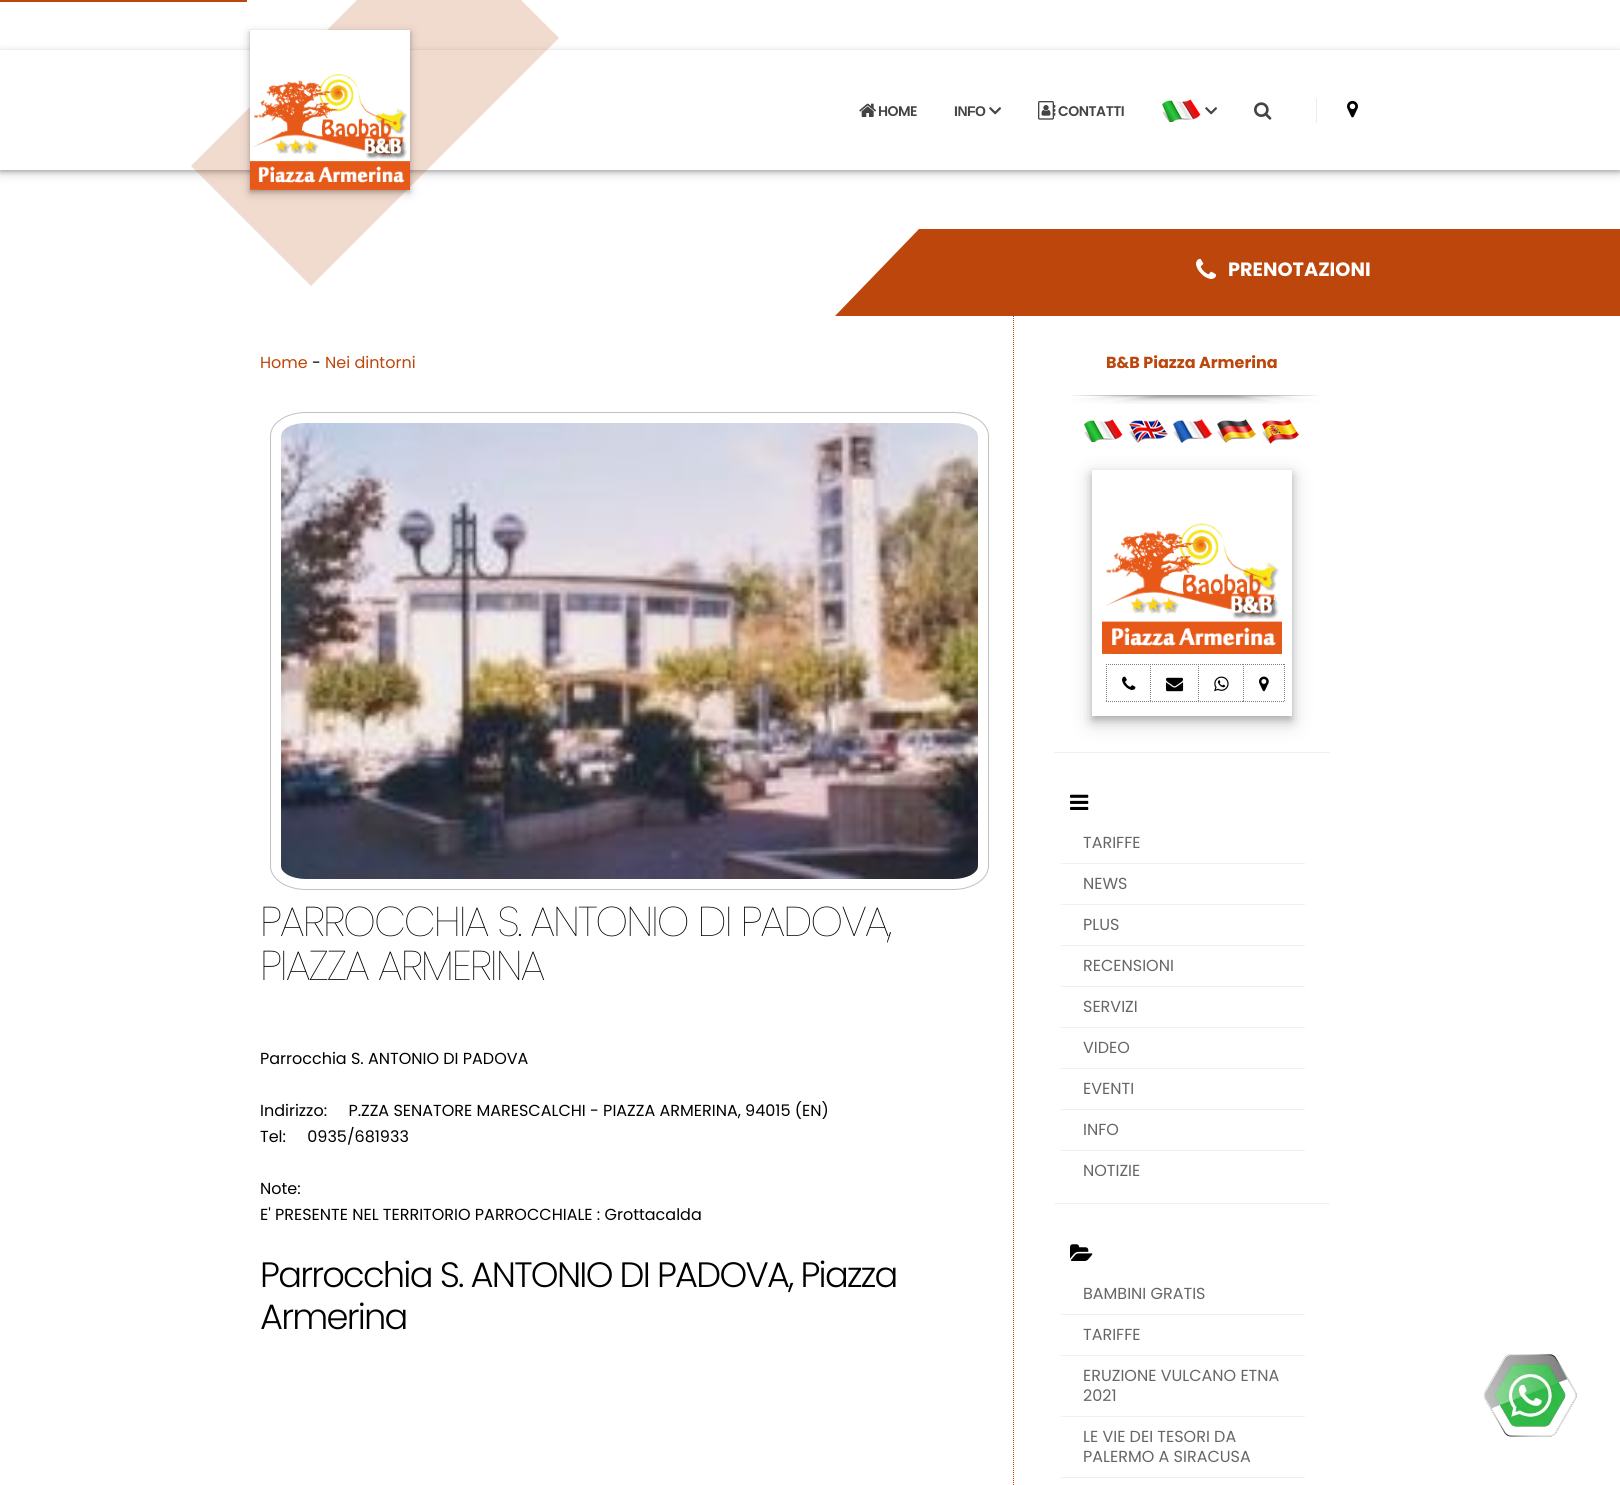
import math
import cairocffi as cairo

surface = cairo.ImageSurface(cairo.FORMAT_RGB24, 1620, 1485)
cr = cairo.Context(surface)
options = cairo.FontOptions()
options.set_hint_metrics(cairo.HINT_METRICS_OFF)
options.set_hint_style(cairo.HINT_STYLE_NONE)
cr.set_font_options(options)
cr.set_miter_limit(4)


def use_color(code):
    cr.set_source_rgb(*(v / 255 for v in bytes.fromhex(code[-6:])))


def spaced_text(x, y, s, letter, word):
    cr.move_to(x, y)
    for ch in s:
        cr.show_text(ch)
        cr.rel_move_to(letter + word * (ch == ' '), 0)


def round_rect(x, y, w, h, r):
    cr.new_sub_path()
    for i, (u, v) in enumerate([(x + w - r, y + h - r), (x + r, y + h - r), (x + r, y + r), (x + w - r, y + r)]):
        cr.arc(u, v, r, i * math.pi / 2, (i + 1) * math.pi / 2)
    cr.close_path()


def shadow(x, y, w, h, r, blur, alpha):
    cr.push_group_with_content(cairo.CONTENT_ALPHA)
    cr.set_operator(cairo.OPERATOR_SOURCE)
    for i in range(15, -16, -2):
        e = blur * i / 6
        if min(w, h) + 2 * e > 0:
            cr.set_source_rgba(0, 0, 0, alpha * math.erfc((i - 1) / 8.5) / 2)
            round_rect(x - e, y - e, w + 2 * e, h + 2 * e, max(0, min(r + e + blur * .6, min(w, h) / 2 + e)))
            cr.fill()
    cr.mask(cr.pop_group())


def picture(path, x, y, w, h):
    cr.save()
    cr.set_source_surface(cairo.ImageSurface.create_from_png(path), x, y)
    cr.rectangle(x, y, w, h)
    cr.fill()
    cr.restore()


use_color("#ffffff")
cr.paint()
cr.save()
cr.set_fill_rule(cairo.FILL_RULE_EVEN_ODD)
cr.new_path()
cr.move_to(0, 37)
cr.line_to(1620, 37)
cr.line_to(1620, 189)
cr.line_to(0, 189)
cr.close_path()
cr.move_to(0, 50)
cr.line_to(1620, 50)
cr.line_to(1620, 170)
cr.line_to(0, 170)
cr.close_path()
cr.clip()
use_color("#000000")
shadow(0, 53, 1620, 120, 0, 5, 0.19)
cr.restore()
cr.save()
cr.set_fill_rule(cairo.FILL_RULE_EVEN_ODD)
cr.new_path()
cr.move_to(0, 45)
cr.line_to(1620, 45)
cr.line_to(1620, 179)
cr.line_to(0, 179)
cr.close_path()
cr.move_to(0, 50)
cr.line_to(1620, 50)
cr.line_to(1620, 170)
cr.line_to(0, 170)
cr.close_path()
cr.clip()
use_color("#000000")
shadow(0, 52, 1620, 120, 0, 2, 0.2)
cr.restore()
cr.set_source_rgba(0.737, 0.275, 0.043, 0.2)
cr.new_path()
cr.move_to(439, -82)
cr.line_to(559, 38)
cr.line_to(311, 286)
cr.line_to(191, 166)
cr.close_path()
cr.fill()
use_color("#bc460b")
cr.rectangle(0, 0, 247, 2)
cr.fill()
use_color("#000000")
shadow(250, 33, 160, 160, 0, 5, 0.19)
shadow(250, 32, 160, 160, 0, 2, 0.2)
picture("img1.png", 250, 30, 160, 160)
picture("img2.png", 859, 103, 17, 14)
cr.select_font_face("Poppins SemiBold")
cr.set_font_size(14)
use_color("#444444")
spaced_text(878, 116, "HOME", -0.5, 0)
cr.select_font_face("Liberation Sans", cairo.FONT_SLANT_NORMAL, cairo.FONT_WEIGHT_BOLD)
spaced_text(954, 116, "INFO", -0.5, 0)
picture("img3.png", 989, 107, 12, 8)
picture("img4.png", 1038, 101, 18, 19)
cr.select_font_face("Poppins SemiBold")
spaced_text(1058, 116, "CONTATTI", -0.5, 0)
picture("img5.png", 1162, 99, 39, 23)
picture("img3.png", 1205, 107, 12, 8)
picture("img6.png", 1254, 102, 18, 18)
use_color("#ebebeb")
cr.rectangle(1316, 98, 1, 25)
cr.fill()
picture("img7.png", 1347, 100, 11, 18)
cr.new_path()
cr.move_to(1013.5, 310)
cr.line_to(1013.5, 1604)
use_color("#bc460b")
cr.set_line_width(1)
cr.set_dash([1, 1])
cr.stroke()
cr.new_path()
cr.move_to(835, 316)
cr.line_to(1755, 316)
cr.line_to(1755, 229)
cr.line_to(919, 229)
cr.fill()
picture("img8.png", 1196, 258, 21, 21)
cr.select_font_face("Poppins", cairo.FONT_SLANT_NORMAL, cairo.FONT_WEIGHT_BOLD)
cr.set_font_size(19.25)
use_color("#ffffff")
cr.move_to(1228, 276)
cr.show_text("PRENOTAZIONI")
cr.select_font_face("Poppins")
cr.set_font_size(16)
use_color("#bc460b")
cr.move_to(260, 368)
cr.show_text("Home")
use_color("#000000")
cr.move_to(312, 368)
cr.show_text("-")
use_color("#bc460b")
cr.move_to(325, 368)
cr.show_text("Nei dintorni")
cr.new_path()
cr.move_to(306, 412.5)
cr.line_to(953, 412.5)
cr.curve_to(972.5, 412.5, 988.5, 423, 988.5, 436)
cr.line_to(988.5, 866)
cr.curve_to(988.5, 879, 972.5, 889.5, 953, 889.5)
cr.line_to(306, 889.5)
cr.curve_to(286.5, 889.5, 270.5, 879, 270.5, 866)
cr.line_to(270.5, 436)
cr.curve_to(270.5, 423, 286.5, 412.5, 306, 412.5)
cr.close_path()
use_color("#c0c0c0")
cr.set_dash([])
cr.stroke()
picture("img9.png", 281, 423, 697, 456)
cr.select_font_face("Poppins ExtraLight")
cr.set_font_size(41.6)
use_color("#000000")
spaced_text(260, 936, "PARROCCHIA S. ANTONIO DI PADOVA,", -2.1, 0)
spaced_text(260, 980, "PIAZZA ARMERINA", -2.1, 0)
cr.select_font_face("Poppins")
cr.set_font_size(16)
cr.move_to(260, 1064)
cr.show_text("Parrocchia S. ANTONIO DI PADOVA")
cr.move_to(260, 1116)
cr.show_text("Indirizzo:     P.ZZA SENATORE MARESCALCHI - PIAZZA ARMERINA, 94015 (EN)")
cr.move_to(260, 1142)
cr.show_text("Tel:     0935/681933")
cr.move_to(260, 1194)
cr.show_text("Note:")
cr.move_to(260, 1220)
cr.show_text("E' PRESENTE NEL TERRITORIO PARROCCHIALE : Grottacalda")
cr.select_font_face("Poppins Light")
cr.set_font_size(35.25)
spaced_text(260, 1287, "Parrocchia S. ANTONIO DI PADOVA, Piazza", -1.75, 0)
spaced_text(260, 1329, "Armerina", -1.75, 0)
cr.select_font_face("Poppins", cairo.FONT_SLANT_NORMAL, cairo.FONT_WEIGHT_BOLD)
cr.set_font_size(16)
use_color("#bc460b")
cr.move_to(1106, 368)
cr.show_text("B&B Piazza Armerina")
picture("img10.png", 1071, 395, 248, 9)
picture("img5.png", 1084, 419, 39, 23)
picture("img11.png", 1129, 419, 39, 24)
picture("img12.png", 1173, 419, 39, 24)
picture("img13.png", 1217, 419, 39, 24)
picture("img14.png", 1262, 419, 37, 25)
cr.save()
cr.set_fill_rule(cairo.FILL_RULE_EVEN_ODD)
cr.new_path()
cr.move_to(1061, 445)
cr.line_to(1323, 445)
cr.line_to(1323, 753)
cr.line_to(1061, 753)
cr.close_path()
cr.move_to(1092, 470)
cr.line_to(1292, 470)
cr.line_to(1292, 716)
cr.line_to(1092, 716)
cr.close_path()
cr.clip()
use_color("#000000")
shadow(1092, 476, 200, 246, 0, 10, 0.19)
cr.restore()
cr.save()
cr.set_fill_rule(cairo.FILL_RULE_EVEN_ODD)
cr.new_path()
cr.move_to(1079, 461)
cr.line_to(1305, 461)
cr.line_to(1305, 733)
cr.line_to(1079, 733)
cr.close_path()
cr.move_to(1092, 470)
cr.line_to(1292, 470)
cr.line_to(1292, 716)
cr.line_to(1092, 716)
cr.close_path()
cr.clip()
use_color("#000000")
shadow(1092, 474, 200, 246, 0, 4, 0.2)
cr.restore()
picture("img15.png", 1102, 523, 180, 131)
cr.new_path()
cr.move_to(1106, 664.5)
cr.line_to(1151, 664.5)
cr.move_to(1150.5, 664)
cr.line_to(1150.5, 702)
cr.move_to(1106, 701.5)
cr.line_to(1151, 701.5)
cr.move_to(1106.5, 664)
cr.line_to(1106.5, 702)
use_color("#808080")
cr.set_dash([1, 1])
cr.stroke()
picture("img16.png", 1122, 676, 14, 14)
cr.new_path()
cr.move_to(1150, 664.5)
cr.line_to(1199, 664.5)
cr.move_to(1198.5, 664)
cr.line_to(1198.5, 702)
cr.move_to(1150, 701.5)
cr.line_to(1199, 701.5)
cr.stroke()
picture("img17.png", 1166, 677, 18, 15)
cr.new_path()
cr.move_to(1198, 664.5)
cr.line_to(1244, 664.5)
cr.move_to(1243.5, 664)
cr.line_to(1243.5, 702)
cr.move_to(1198, 701.5)
cr.line_to(1244, 701.5)
cr.stroke()
picture("img18.png", 1214, 676, 15, 16)
cr.new_path()
cr.move_to(1243, 664.5)
cr.line_to(1285, 664.5)
cr.move_to(1284.5, 664)
cr.line_to(1284.5, 702)
cr.move_to(1243, 701.5)
cr.line_to(1285, 701.5)
cr.stroke()
picture("img19.png", 1259, 676, 10, 16)
use_color("#f0f0f0")
cr.rectangle(1054, 752, 276, 1)
cr.fill()
picture("img20.png", 1070, 794, 19, 16)
cr.rectangle(1061, 863, 244, 1)
cr.fill()
cr.select_font_face("Poppins")
use_color("#666666")
cr.move_to(1083, 848)
cr.show_text("TARIFFE")
use_color("#f0f0f0")
cr.rectangle(1061, 904, 244, 1)
cr.fill()
use_color("#666666")
cr.move_to(1083, 889)
cr.show_text("NEWS")
use_color("#f0f0f0")
cr.rectangle(1061, 945, 244, 1)
cr.fill()
use_color("#666666")
cr.move_to(1083, 930)
cr.show_text("PLUS")
use_color("#f0f0f0")
cr.rectangle(1061, 986, 244, 1)
cr.fill()
use_color("#666666")
cr.move_to(1083, 971)
cr.show_text("RECENSIONI")
use_color("#f0f0f0")
cr.rectangle(1061, 1027, 244, 1)
cr.fill()
use_color("#666666")
cr.move_to(1083, 1012)
cr.show_text("SERVIZI")
use_color("#f0f0f0")
cr.rectangle(1061, 1068, 244, 1)
cr.fill()
use_color("#666666")
cr.move_to(1083, 1053)
cr.show_text("VIDEO")
use_color("#f0f0f0")
cr.rectangle(1061, 1109, 244, 1)
cr.fill()
use_color("#666666")
cr.move_to(1083, 1094)
cr.show_text("EVENTI")
use_color("#f0f0f0")
cr.rectangle(1061, 1150, 244, 1)
cr.fill()
use_color("#666666")
cr.move_to(1083, 1135)
cr.show_text("INFO")
cr.move_to(1083, 1176)
cr.show_text("NOTIZIE")
use_color("#f0f0f0")
cr.rectangle(1054, 1203, 276, 1)
cr.fill()
picture("img21.png", 1070, 1244, 23, 17)
cr.rectangle(1061, 1314, 244, 1)
cr.fill()
use_color("#666666")
cr.move_to(1083, 1299)
cr.show_text("BAMBINI GRATIS")
use_color("#f0f0f0")
cr.rectangle(1061, 1355, 244, 1)
cr.fill()
use_color("#666666")
cr.move_to(1083, 1340)
cr.show_text("TARIFFE")
use_color("#f0f0f0")
cr.rectangle(1061, 1416, 244, 1)
cr.fill()
use_color("#666666")
cr.move_to(1083, 1381)
cr.show_text("ERUZIONE VULCANO ETNA")
cr.move_to(1083, 1401)
cr.show_text("2021")
use_color("#f0f0f0")
cr.rectangle(1061, 1477, 244, 1)
cr.fill()
use_color("#666666")
cr.move_to(1083, 1442)
cr.show_text("LE VIE DEI TESORI DA")
cr.move_to(1083, 1462)
cr.show_text("PALERMO A SIRACUSA")
picture("img22.png", 1483, 1354, 94, 83)
surface.write_to_png("result.png")
